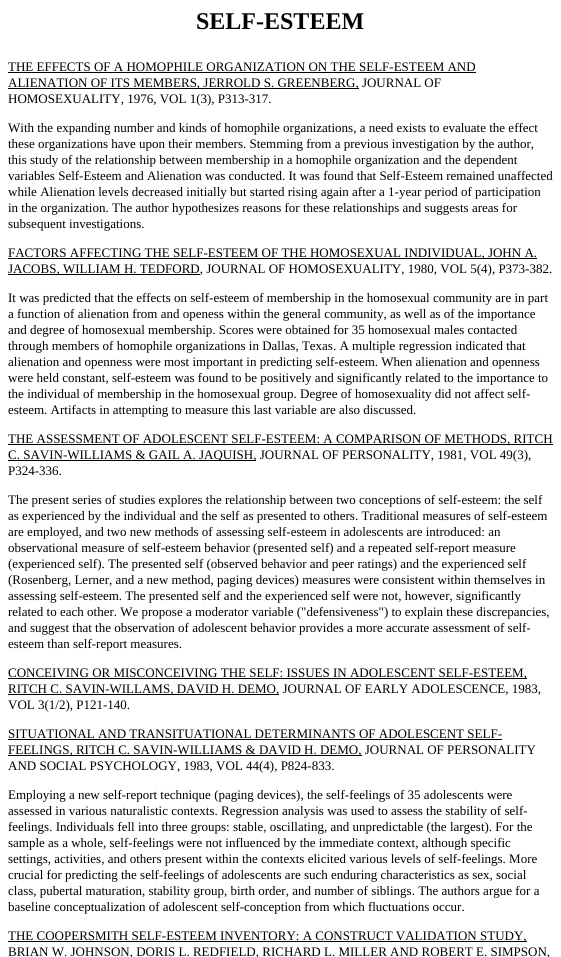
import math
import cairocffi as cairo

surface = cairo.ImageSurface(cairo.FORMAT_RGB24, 561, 957)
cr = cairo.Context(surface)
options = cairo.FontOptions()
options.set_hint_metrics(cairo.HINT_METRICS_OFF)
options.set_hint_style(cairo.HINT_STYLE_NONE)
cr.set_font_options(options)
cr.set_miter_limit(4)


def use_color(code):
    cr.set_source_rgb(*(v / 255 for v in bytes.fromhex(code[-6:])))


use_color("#ffffff")
cr.paint()
cr.select_font_face("Liberation Serif", cairo.FONT_SLANT_NORMAL, cairo.FONT_WEIGHT_BOLD)
cr.set_font_size(24)
use_color("#000000")
cr.move_to(196, 29)
cr.show_text("SELF-ESTEEM")
cr.select_font_face("Liberation Serif")
cr.set_font_size(13)
cr.move_to(8, 71)
cr.show_text("THE EFFECTS OF A HOMOPHILE ORGANIZATION ON THE SELF-ESTEEM AND")
cr.rectangle(8, 72, 468, 1)
cr.fill()
cr.rectangle(8, 88, 351, 1)
cr.fill()
cr.move_to(8, 87)
cr.show_text("ALIENATION OF ITS MEMBERS, JERROLD S. GREENBERG, JOURNAL OF")
cr.move_to(8, 103)
cr.show_text("HOMOSEXUALITY, 1976, VOL 1(3), P313-317.")
cr.move_to(8, 132)
cr.show_text("With the expanding number and kinds of homophile organizations, a need exists to evaluate the effect")
cr.move_to(8, 148)
cr.show_text("these organizations have upon their members. Stemming from a previous investigation by the author,")
cr.move_to(8, 164)
cr.show_text("this study of the relationship between membership in a homophile organization and the dependent")
cr.move_to(8, 180)
cr.show_text("variables Self-Esteem and Alienation was conducted. It was found that Self-Esteem remained unaffected")
cr.move_to(8, 196)
cr.show_text("while Alienation levels decreased initially but started rising again after a 1-year period of participation")
cr.move_to(8, 212)
cr.show_text("in the organization. The author hypothesizes reasons for these relationships and suggests areas for")
cr.move_to(8, 228)
cr.show_text("subsequent investigations.")
cr.rectangle(8, 258, 529, 1)
cr.fill()
cr.move_to(8, 257)
cr.show_text("FACTORS AFFECTING THE SELF-ESTEEM OF THE HOMOSEXUAL INDIVIDUAL, JOHN A.")
cr.rectangle(8, 274, 192, 1)
cr.fill()
cr.move_to(8, 273)
cr.show_text("JACOBS, WILLIAM H. TEDFORD, JOURNAL OF HOMOSEXUALITY, 1980, VOL 5(4), P373-382.")
cr.move_to(8, 302)
cr.show_text("It was predicted that the effects on self-esteem of membership in the homosexual community are in part")
cr.move_to(8, 318)
cr.show_text("a function of alienation from and openess within the general community, as well as of the importance")
cr.move_to(8, 334)
cr.show_text("and degree of homosexual membership. Scores were obtained for 35 homosexual males contacted")
cr.move_to(8, 350)
cr.show_text("through members of homophile organizations in Dallas, Texas. A multiple regression indicated that")
cr.move_to(8, 366)
cr.show_text("alienation and openness were most important in predicting self-esteem. When alienation and openness")
cr.move_to(8, 382)
cr.show_text("were held constant, self-esteem was found to be positively and significantly related to the importance to")
cr.move_to(8, 398)
cr.show_text("the individual of membership in the homosexual group. Degree of homosexuality did not affect self-")
cr.move_to(8, 414)
cr.show_text("esteem. Artifacts in attempting to measure this last variable are also discussed.")
cr.rectangle(8, 444, 545, 1)
cr.fill()
cr.move_to(8, 443)
cr.show_text("THE ASSESSMENT OF ADOLESCENT SELF-ESTEEM: A COMPARISON OF METHODS, RITCH")
cr.rectangle(8, 460, 248, 1)
cr.fill()
cr.move_to(8, 459)
cr.show_text("C. SAVIN-WILLIAMS & GAIL A. JAQUISH, JOURNAL OF PERSONALITY, 1981, VOL 49(3),")
cr.move_to(8, 475)
cr.show_text("P324-336.")
cr.move_to(8, 504)
cr.show_text("The present series of studies explores the relationship between two conceptions of self-esteem: the self")
cr.move_to(8, 520)
cr.show_text("as experienced by the individual and the self as presented to others. Traditional measures of self-esteem")
cr.move_to(8, 536)
cr.show_text("are employed, and two new methods of assessing self-esteem in adolescents are introduced: an")
cr.move_to(8, 552)
cr.show_text("observational measure of self-esteem behavior (presented self) and a repeated self-report measure")
cr.move_to(8, 568)
cr.show_text("(experienced self). The presented self (observed behavior and peer ratings) and the experienced self")
cr.move_to(8, 584)
cr.show_text("(Rosenberg, Lerner, and a new method, paging devices) measures were consistent within themselves in")
cr.move_to(8, 600)
cr.show_text("assessing self-esteem. The presented self and the experienced self were not, however, significantly")
cr.move_to(8, 616)
cr.show_text("related to each other. We propose a moderator variable (\"defensiveness\") to explain these discrepancies,")
cr.move_to(8, 632)
cr.show_text("and suggest that the observation of adolescent behavior provides a more accurate assessment of self-")
cr.move_to(8, 648)
cr.show_text("esteem than self-report measures.")
cr.rectangle(8, 678, 519, 1)
cr.fill()
cr.move_to(8, 677)
cr.show_text("CONCEIVING OR MISCONCEIVING THE SELF: ISSUES IN ADOLESCENT SELF-ESTEEM,")
cr.rectangle(8, 694, 271, 1)
cr.fill()
cr.move_to(8, 693)
cr.show_text("RITCH C. SAVIN-WILLAMS, DAVID H. DEMO, JOURNAL OF EARLY ADOLESCENCE, 1983,")
cr.move_to(8, 709)
cr.show_text("VOL 3(1/2), P121-140.")
cr.move_to(8, 738)
cr.show_text("SITUATIONAL AND TRANSITUATIONAL DETERMINANTS OF ADOLESCENT SELF-")
cr.rectangle(8, 739, 494, 1)
cr.fill()
cr.rectangle(8, 755, 354, 1)
cr.fill()
cr.move_to(8, 754)
cr.show_text("FEELINGS, RITCH C. SAVIN-WILLIAMS & DAVID H. DEMO, JOURNAL OF PERSONALITY")
cr.move_to(8, 770)
cr.show_text("AND SOCIAL PSYCHOLOGY, 1983, VOL 44(4), P824-833.")
cr.move_to(8, 799)
cr.show_text("Employing a new self-report technique (paging devices), the self-feelings of 35 adolescents were")
cr.move_to(8, 815)
cr.show_text("assessed in various naturalistic contexts. Regression analysis was used to assess the stability of self-")
cr.move_to(8, 831)
cr.show_text("feelings. Individuals fell into three groups: stable, oscillating, and unpredictable (the largest). For the")
cr.move_to(8, 847)
cr.show_text("sample as a whole, self-feelings were not influenced by the immediate context, although specific")
cr.move_to(8, 863)
cr.show_text("settings, activities, and others present within the contexts elicited various levels of self-feelings. More")
cr.move_to(8, 879)
cr.show_text("crucial for predicting the self-feelings of adolescents are such enduring characteristics as sex, social")
cr.move_to(8, 895)
cr.show_text("class, pubertal maturation, stability group, birth order, and number of siblings. The authors argue for a")
cr.move_to(8, 911)
cr.show_text("baseline conceptualization of adolescent self-conception from which fluctuations occur.")
cr.rectangle(8, 941, 519, 1)
cr.fill()
cr.move_to(8, 940)
cr.show_text("THE COOPERSMITH SELF-ESTEEM INVENTORY: A CONSTRUCT VALIDATION STUDY,")
cr.move_to(8, 956)
cr.show_text("BRIAN W. JOHNSON, DORIS L. REDFIELD, RICHARD L. MILLER AND ROBERT E. SIMPSON,")
surface.write_to_png("result.png")
